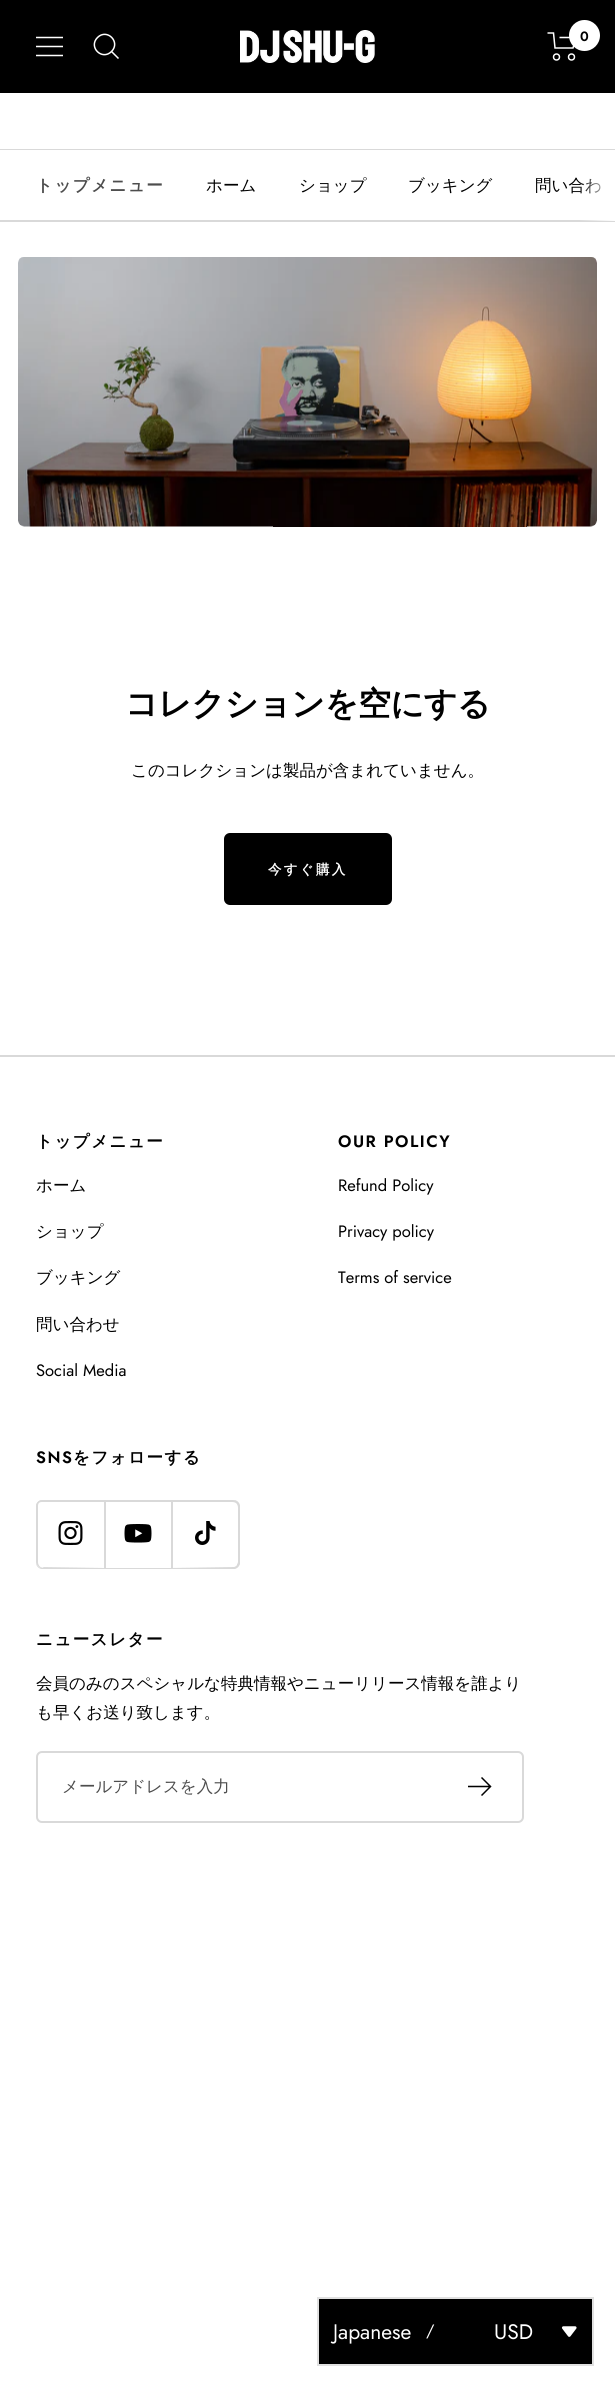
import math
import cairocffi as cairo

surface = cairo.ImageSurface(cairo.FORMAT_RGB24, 615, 2387)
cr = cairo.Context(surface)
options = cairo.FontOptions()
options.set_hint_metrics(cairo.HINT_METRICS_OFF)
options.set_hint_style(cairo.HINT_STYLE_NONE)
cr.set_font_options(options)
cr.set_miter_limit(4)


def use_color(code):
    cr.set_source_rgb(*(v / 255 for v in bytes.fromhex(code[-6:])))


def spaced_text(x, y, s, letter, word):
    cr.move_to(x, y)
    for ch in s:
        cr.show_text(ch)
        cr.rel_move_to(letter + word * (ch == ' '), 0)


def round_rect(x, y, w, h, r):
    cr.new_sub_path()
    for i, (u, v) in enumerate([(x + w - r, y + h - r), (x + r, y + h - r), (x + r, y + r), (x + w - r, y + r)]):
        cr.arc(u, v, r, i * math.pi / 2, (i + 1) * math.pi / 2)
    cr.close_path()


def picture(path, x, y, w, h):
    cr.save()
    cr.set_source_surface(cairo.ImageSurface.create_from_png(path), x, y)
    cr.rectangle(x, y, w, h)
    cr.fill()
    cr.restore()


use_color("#ffffff")
cr.paint()
use_color("#000000")
cr.rectangle(0, 0, 615, 93)
cr.fill()
cr.new_path()
cr.move_to(36, 37.5)
cr.line_to(63, 37.5)
cr.move_to(36, 55.5)
cr.line_to(63, 55.5)
cr.close_path()
cr.move_to(36, 46.5)
cr.line_to(63, 46.5)
cr.close_path()
use_color("#ffffff")
cr.set_line_width(1.5)
cr.stroke()
cr.new_path()
cr.move_to(111.5, 51.5)
cr.curve_to(121, 42, 107, 28, 97.5, 37.5)
cr.curve_to(88, 47, 102, 61, 111.5, 51.5)
cr.close_path()
cr.move_to(111.5, 51.5)
cr.line_to(118.5, 58.5)
cr.stroke()
picture("img1.png", 240, 30, 135, 33)
cr.new_path()
cr.move_to(547.5, 33)
cr.line_to(553.5, 33)
cr.line_to(555, 48)
cr.line_to(573, 48)
cr.line_to(576, 37.5)
cr.line_to(559.5, 37.5)
cr.stroke()
cr.arc(556.5, 57, 3, 0, 2 * math.pi)
cr.stroke()
cr.arc(571.5, 57, 3, 0, 2 * math.pi)
cr.stroke()
cr.arc(584.5, 35.5, 15.5, 0, 2 * math.pi)
cr.fill()
cr.select_font_face("Jost SemiBold")
cr.set_font_size(13.5)
use_color("#000000")
cr.move_to(580, 41)
cr.show_text("0")
use_color("#d9d9d9")
cr.rectangle(0, 149, 615, 1)
cr.fill()
cr.rectangle(0, 220, 615, 2)
cr.fill()
cr.select_font_face("WenQuanYi Zen Hei", cairo.FONT_SLANT_NORMAL, cairo.FONT_WEIGHT_BOLD)
cr.set_font_size(16.5)
use_color("#4d4d4d")
spaced_text(36, 191, "トップメニュー", 1.5, 0)
cr.select_font_face("WenQuanYi Zen Hei Medium")
use_color("#000000")
cr.move_to(206, 191)
cr.show_text("ホーム")
cr.move_to(299, 191)
cr.show_text("ショップ")
cr.move_to(408, 191)
cr.show_text("ブッキング")
cr.move_to(535, 191)
cr.show_text("問い合わ")
gradient = cairo.LinearGradient(615, 185, 579, 185)
gradient.add_color_stop_rgba(0, 1, 1, 1, 1)
gradient.add_color_stop_rgba(1, 1, 1, 1, 0)
cr.set_source(gradient)
cr.rectangle(580, 178, 35, 43)
cr.fill()
picture("img2.png", 18, 257, 579, 270)
cr.select_font_face("WenQuanYi Zen Hei", cairo.FONT_SLANT_NORMAL, cairo.FONT_WEIGHT_BOLD)
cr.set_font_size(33)
use_color("#000000")
spaced_text(125, 715, "コレクションを空にする", -0.5, 0)
cr.select_font_face("WenQuanYi Zen Hei Medium")
cr.set_font_size(16.5)
cr.move_to(131, 776)
cr.show_text("このコレクションは製品が含まれていません。")
round_rect(224, 833, 168, 72, 6)
cr.fill()
cr.select_font_face("WenQuanYi Zen Hei", cairo.FONT_SLANT_NORMAL, cairo.FONT_WEIGHT_BOLD)
cr.set_font_size(13.5)
use_color("#ffffff")
spaced_text(268, 874, "今すぐ購入", 2.25, 0)
use_color("#d9d9d9")
cr.rectangle(0, 1055, 615, 2)
cr.fill()
cr.set_font_size(16.5)
use_color("#000000")
spaced_text(36, 1147, "トップメニュー", 1.5, 0)
cr.select_font_face("WenQuanYi Zen Hei Medium")
cr.move_to(36, 1191)
cr.show_text("ホーム")
cr.move_to(36, 1237)
cr.show_text("ショップ")
cr.move_to(36, 1283)
cr.show_text("ブッキング")
cr.move_to(36, 1330)
cr.show_text("問い合わせ")
cr.select_font_face("Jost")
cr.move_to(36, 1376)
cr.show_text("Social Media")
cr.select_font_face("Jost SemiBold")
spaced_text(338, 1147, "OUR POLICY", 1.5, 0)
cr.select_font_face("Jost")
cr.move_to(338, 1191)
cr.show_text("Refund Policy")
cr.move_to(338, 1237)
cr.show_text("Privacy policy")
cr.move_to(338, 1283)
cr.show_text("Terms of service")
cr.select_font_face("Jost SemiBold")
spaced_text(36, 1463, "SNS", 1.5, 0)
cr.select_font_face("WenQuanYi Zen Hei", cairo.FONT_SLANT_NORMAL, cairo.FONT_WEIGHT_BOLD)
spaced_text(73, 1463, "をフォローする", 1.5, 0)
use_color("#d9d9d9")
cr.new_path()
cr.move_to(39, 1567)
cr.curve_to(41, 1568, 42, 1569, 44, 1569)
cr.line_to(105, 1569)
cr.line_to(105, 1502)
cr.line_to(104, 1502)
cr.line_to(104, 1568)
cr.line_to(42, 1568)
cr.close_path()
cr.fill()
cr.new_path()
cr.move_to(36, 1562)
cr.line_to(36, 1563)
cr.curve_to(36, 1566, 39, 1569, 42, 1569)
cr.line_to(104, 1569)
cr.line_to(104, 1502)
cr.line_to(104, 1568)
cr.line_to(42, 1568)
cr.curve_to(39, 1568, 36, 1565, 36, 1562)
cr.close_path()
cr.fill()
cr.new_path()
cr.move_to(42, 1567)
cr.line_to(44, 1568)
cr.line_to(105, 1568)
cr.line_to(105, 1500)
cr.line_to(104, 1500)
cr.line_to(104, 1568)
cr.close_path()
cr.fill()
cr.new_path()
cr.move_to(42, 1502)
cr.line_to(104, 1502)
cr.line_to(104, 1500)
cr.line_to(42, 1500)
cr.curve_to(39, 1500, 36, 1503, 36, 1506)
cr.line_to(36, 1508)
cr.curve_to(36, 1504, 39, 1502, 42, 1502)
cr.close_path()
cr.fill()
cr.new_path()
cr.move_to(42, 1500)
cr.curve_to(39, 1500, 36, 1503, 36, 1506)
cr.line_to(36, 1562)
cr.curve_to(36, 1565, 39, 1568, 42, 1568)
cr.line_to(44, 1568)
cr.curve_to(40, 1568, 38, 1565, 38, 1562)
cr.line_to(38, 1506)
cr.curve_to(38, 1503, 40, 1500, 44, 1500)
cr.close_path()
cr.fill()
picture("img3.png", 58, 1521, 25, 24)
cr.new_path()
cr.move_to(105, 1568)
cr.line_to(105, 1569)
cr.line_to(173, 1569)
cr.line_to(173, 1502)
cr.line_to(171, 1502)
cr.line_to(171, 1568)
cr.close_path()
cr.fill()
cr.new_path()
cr.move_to(105, 1568)
cr.line_to(173, 1568)
cr.line_to(173, 1500)
cr.line_to(171, 1500)
cr.line_to(171, 1568)
cr.close_path()
cr.fill()
cr.rectangle(104, 1500, 67, 2)
cr.fill()
cr.rectangle(105, 1500, 1, 68)
cr.fill()
picture("img4.png", 124, 1524, 28, 19)
cr.new_path()
cr.move_to(173, 1568)
cr.line_to(173, 1569)
cr.line_to(234, 1569)
cr.curve_to(237, 1569, 240, 1566, 240, 1563)
cr.line_to(240, 1508)
cr.curve_to(240, 1506, 239, 1505, 238, 1503)
cr.line_to(238, 1506)
cr.line_to(238, 1562)
cr.curve_to(238, 1565, 236, 1568, 232, 1568)
cr.close_path()
cr.fill()
cr.new_path()
cr.move_to(171, 1568)
cr.line_to(171, 1569)
cr.line_to(233, 1569)
cr.curve_to(236, 1569, 239, 1566, 239, 1563)
cr.line_to(239, 1508)
cr.line_to(238, 1506)
cr.line_to(238, 1552)
cr.curve_to(238, 1557, 240, 1566, 234, 1567)
cr.close_path()
cr.fill()
cr.new_path()
cr.move_to(173, 1568)
cr.line_to(234, 1568)
cr.curve_to(237, 1568, 240, 1565, 240, 1562)
cr.line_to(240, 1506)
cr.curve_to(240, 1503, 237, 1500, 234, 1500)
cr.line_to(232, 1500)
cr.curve_to(236, 1500, 238, 1503, 238, 1506)
cr.line_to(238, 1562)
cr.curve_to(238, 1565, 236, 1568, 232, 1568)
cr.close_path()
cr.fill()
cr.new_path()
cr.move_to(171, 1502)
cr.line_to(232, 1502)
cr.curve_to(236, 1502, 238, 1504, 238, 1508)
cr.line_to(238, 1563)
cr.curve_to(238, 1564, 238, 1565, 237, 1566)
cr.curve_to(238, 1565, 239, 1564, 239, 1562)
cr.line_to(239, 1506)
cr.curve_to(239, 1503, 236, 1500, 233, 1500)
cr.line_to(171, 1500)
cr.close_path()
cr.fill()
picture("img5.png", 195, 1521, 21, 24)
use_color("#000000")
spaced_text(36, 1645, "ニュースレター", 1.5, 0)
cr.select_font_face("WenQuanYi Zen Hei Medium")
cr.move_to(36, 1689)
cr.show_text("会員のみのスペシャルな特典情報やニューリリース情報を誰より")
cr.move_to(36, 1718)
cr.show_text("も早くお送り致します。")
round_rect(37, 1752, 486, 70, 5)
use_color("#d9d9d9")
cr.set_line_width(2)
cr.stroke()
use_color("#4d4d4d")
cr.move_to(62, 1792)
cr.show_text("メールアドレスを入力")
cr.new_path()
cr.move_to(468, 1786.5)
cr.line_to(490.5, 1786.5)
cr.move_to(481.5, 1777.5)
cr.line_to(490.5, 1786.5)
cr.line_to(481.5, 1795.5)
use_color("#000000")
cr.set_line_width(1.5)
cr.stroke()
cr.rectangle(318, 2298, 275, 67)
cr.fill_preserve()
use_color("#e0e0e0")
cr.set_line_width(2)
cr.stroke()
cr.select_font_face("Jost")
cr.set_font_size(21)
use_color("#ffffff")
cr.move_to(333, 2339)
cr.show_text("Japanese")
cr.set_font_size(16.5)
cr.move_to(426, 2336)
cr.show_text("/")
cr.set_font_size(21)
cr.move_to(494, 2339)
cr.show_text("USD")
picture("img6.png", 561, 2326, 16, 11)
surface.write_to_png("result.png")
